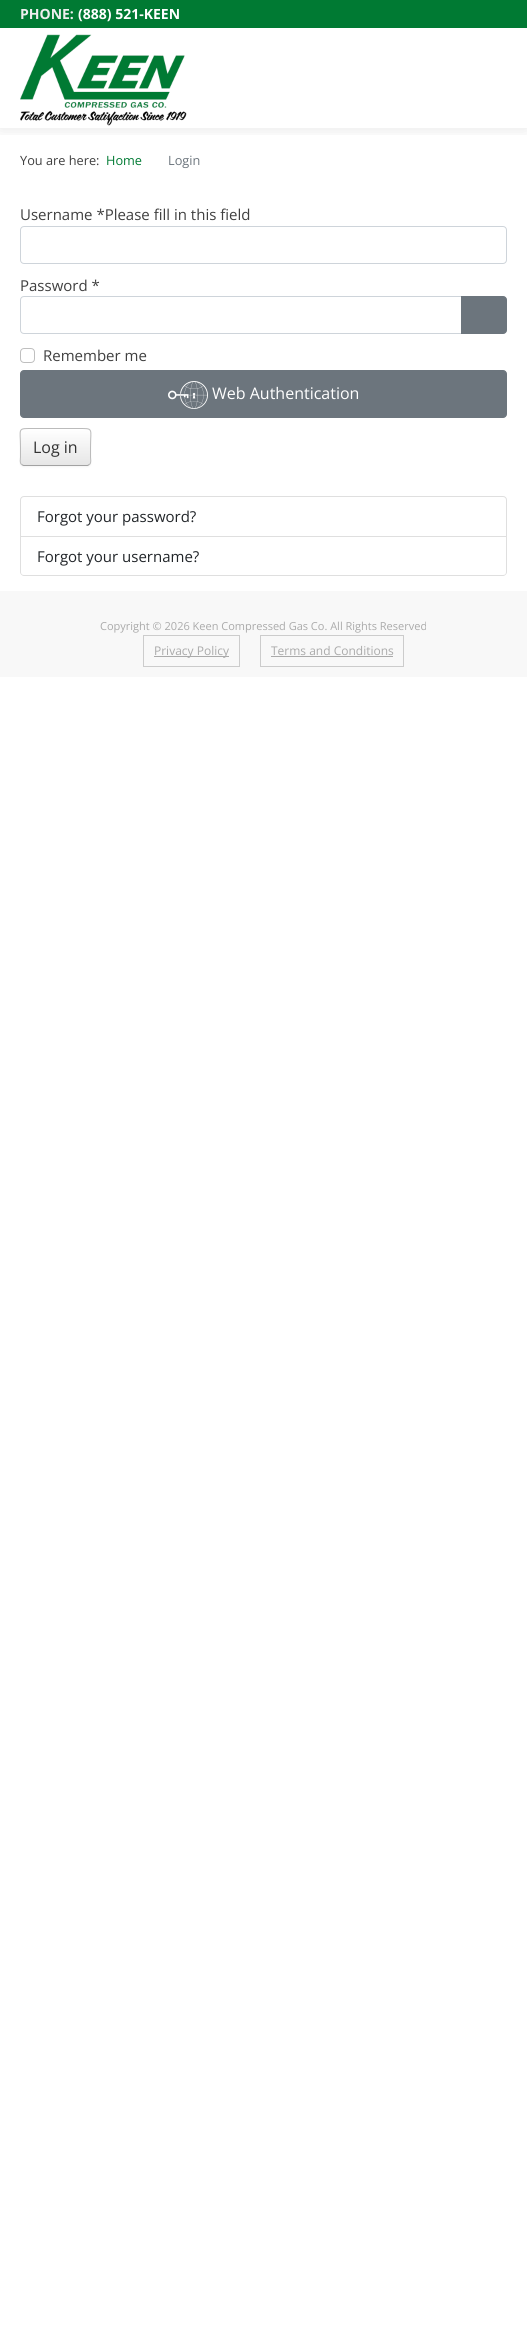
import math
import cairocffi as cairo

surface = cairo.ImageSurface(cairo.FORMAT_RGB24, 527, 2336)
cr = cairo.Context(surface)
options = cairo.FontOptions()
options.set_hint_metrics(cairo.HINT_METRICS_OFF)
options.set_hint_style(cairo.HINT_STYLE_NONE)
cr.set_font_options(options)
cr.set_miter_limit(4)


def use_color(code):
    cr.set_source_rgb(*(v / 255 for v in bytes.fromhex(code[-6:])))


def round_rect(x, y, w, h, r):
    cr.new_sub_path()
    for i, (u, v) in enumerate([(x + w - r, y + h - r), (x + r, y + h - r), (x + r, y + r), (x + w - r, y + r)]):
        cr.arc(u, v, r, i * math.pi / 2, (i + 1) * math.pi / 2)
    cr.close_path()


def shadow(x, y, w, h, r, blur, alpha):
    cr.push_group_with_content(cairo.CONTENT_ALPHA)
    cr.set_operator(cairo.OPERATOR_SOURCE)
    for i in range(15, -16, -2):
        e = blur * i / 6
        if min(w, h) + 2 * e > 0:
            cr.set_source_rgba(0, 0, 0, alpha * math.erfc((i - 1) / 8.5) / 2)
            round_rect(x - e, y - e, w + 2 * e, h + 2 * e, max(0, min(r + e + blur * .6, min(w, h) / 2 + e)))
            cr.fill()
    cr.mask(cr.pop_group())


def picture(path, x, y, w, h):
    cr.save()
    cr.set_source_surface(cairo.ImageSurface.create_from_png(path), x, y)
    cr.rectangle(x, y, w, h)
    cr.fill()
    cr.restore()


use_color("#ffffff")
cr.paint()
cr.save()
cr.rectangle(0, 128, 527, 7)
cr.clip()
use_color("#000000")
shadow(0, 1, 527, 128, 0, 7.5, 0.1)
cr.restore()
use_color("#007a33")
cr.rectangle(0, 0, 527, 28)
cr.fill()
cr.select_font_face("Open Sans", cairo.FONT_SLANT_NORMAL, cairo.FONT_WEIGHT_BOLD)
cr.set_font_size(14)
use_color("#eeeeee")
cr.move_to(20, 19)
cr.show_text("PHONE:")
use_color("#ffffff")
cr.move_to(78, 19)
cr.show_text("(888) 521-KEEN")
picture("img1.png", 20, 34, 167, 92)
cr.select_font_face("Open Sans")
cr.set_font_size(12.75)
use_color("#404040")
cr.move_to(20, 165)
cr.show_text("You are here:")
use_color("#007a33")
cr.move_to(106, 165)
cr.show_text("Home")
use_color("#6c757d")
cr.move_to(168, 165)
cr.show_text("Login")
cr.set_font_size(15)
use_color("#404040")
cr.move_to(20, 220)
cr.show_text("Username *Please fill in this field")
round_rect(20.5, 226.5, 486, 37, 3.5)
use_color("#ced4da")
cr.set_line_width(1)
cr.stroke()
use_color("#404040")
cr.move_to(20, 291)
cr.show_text("Password *")
cr.new_path()
cr.move_to(24, 296.5)
cr.line_to(461.5, 296.5)
cr.line_to(461.5, 333.5)
cr.line_to(24, 333.5)
cr.curve_to(22, 333.5, 20.5, 332, 20.5, 330)
cr.line_to(20.5, 300)
cr.curve_to(20.5, 298, 22, 296.5, 24, 296.5)
cr.close_path()
use_color("#ced4da")
cr.stroke()
use_color("#6c757d")
cr.new_path()
cr.move_to(461.5, 296.5)
cr.line_to(503, 296.5)
cr.curve_to(505, 296.5, 506.5, 298, 506.5, 300)
cr.line_to(506.5, 330)
cr.curve_to(506.5, 332, 505, 333.5, 503, 333.5)
cr.line_to(461.5, 333.5)
cr.close_path()
cr.fill_preserve()
cr.stroke()
round_rect(20.5, 348.5, 14, 14, 3.5)
use_color("#bfbfbf")
cr.stroke()
use_color("#404040")
cr.move_to(43, 361)
cr.show_text("Remember me")
use_color("#6c757d")
round_rect(20.5, 370.5, 486, 47, 3.5)
cr.fill_preserve()
cr.stroke()
picture("img2.png", 168, 381, 40, 28)
cr.set_font_size(16)
use_color("#ffffff")
cr.move_to(212, 399)
cr.show_text("Web Authentication")
use_color("#000000")
shadow(20, 429, 71, 38, 4, 1, 0.05)
use_color("#f5f5f5")
round_rect(20, 428, 71, 38, 4)
cr.fill()
cr.save()
round_rect(20, 428, 71, 38, 4)
cr.clip()
gradient = cairo.LinearGradient(56, 429, 56, 465)
gradient.add_color_stop_rgba(0, 1, 1, 1, 1)
gradient.add_color_stop_rgba(1, 0.902, 0.902, 0.902, 1)
cr.set_source(gradient)
cr.rectangle(20, 429, 71, 36)
cr.fill()
cr.restore()
cr.new_path()
cr.move_to(89.5, 464.5)
cr.line_to(87.5, 465.5)
cr.line_to(23.5, 465.5)
cr.line_to(21.5, 464.5)
use_color("#a2a2a2")
cr.stroke()
cr.new_path()
cr.move_to(21.5, 464.5)
cr.curve_to(19.5, 462.5, 20.5, 459, 20.5, 457)
cr.line_to(20.5, 447)
cr.curve_to(20.5, 427.5, 16.5, 428.5, 34.5, 428.5)
cr.line_to(76.5, 428.5)
cr.curve_to(94.5, 428.5, 90.5, 427.5, 90.5, 447)
cr.line_to(90.5, 457)
cr.curve_to(90.5, 459, 91.5, 462.5, 89.5, 464.5)
use_color("#bbbbbb")
cr.stroke()
use_color("#333333")
cr.move_to(33, 453)
cr.show_text("Log in")
cr.new_path()
cr.move_to(24, 496.5)
cr.line_to(503, 496.5)
cr.curve_to(505, 496.5, 506.5, 498, 506.5, 500)
cr.line_to(506.5, 536.5)
cr.line_to(20.5, 536.5)
cr.line_to(20.5, 500)
cr.curve_to(20.5, 498, 22, 496.5, 24, 496.5)
cr.close_path()
use_color("#dfdfdf")
cr.stroke()
cr.set_font_size(15)
use_color("#212529")
cr.move_to(37, 522)
cr.show_text("Forgot your password?")
use_color("#dfdfdf")
cr.set_fill_rule(cairo.FILL_RULE_EVEN_ODD)
cr.new_path()
cr.move_to(20, 537)
cr.line_to(507, 537)
cr.line_to(507, 572)
cr.curve_to(507, 574, 505, 576, 503, 576)
cr.line_to(24, 576)
cr.curve_to(22, 576, 20, 574, 20, 572)
cr.close_path()
cr.move_to(21, 537)
cr.line_to(506, 537)
cr.line_to(506, 572)
cr.curve_to(506, 574, 505, 575, 503, 575)
cr.line_to(24, 575)
cr.curve_to(22, 575, 21, 574, 21, 572)
cr.close_path()
cr.fill()
use_color("#212529")
cr.move_to(37, 562)
cr.show_text("Forgot your username?")
use_color("#f8f8f8")
cr.rectangle(0, 591, 527, 86)
cr.fill()
cr.set_font_size(11)
use_color("#aaaaaa")
cr.move_to(100, 630)
cr.show_text("Copyright © 2026 Keen Compressed Gas Co. All Rights Reserved")
cr.rectangle(143.5, 635.5, 96, 31)
use_color("#cccccc")
cr.stroke()
use_color("#aaaaaa")
cr.rectangle(154, 656, 75, 1)
cr.fill()
cr.set_font_size(12)
cr.move_to(154, 655)
cr.show_text("Privacy Policy")
cr.rectangle(260.5, 635.5, 143, 31)
use_color("#cccccc")
cr.stroke()
use_color("#aaaaaa")
cr.move_to(271, 655)
cr.show_text("Terms and Conditions")
cr.rectangle(271, 656, 122, 1)
cr.fill()
surface.write_to_png("result.png")
